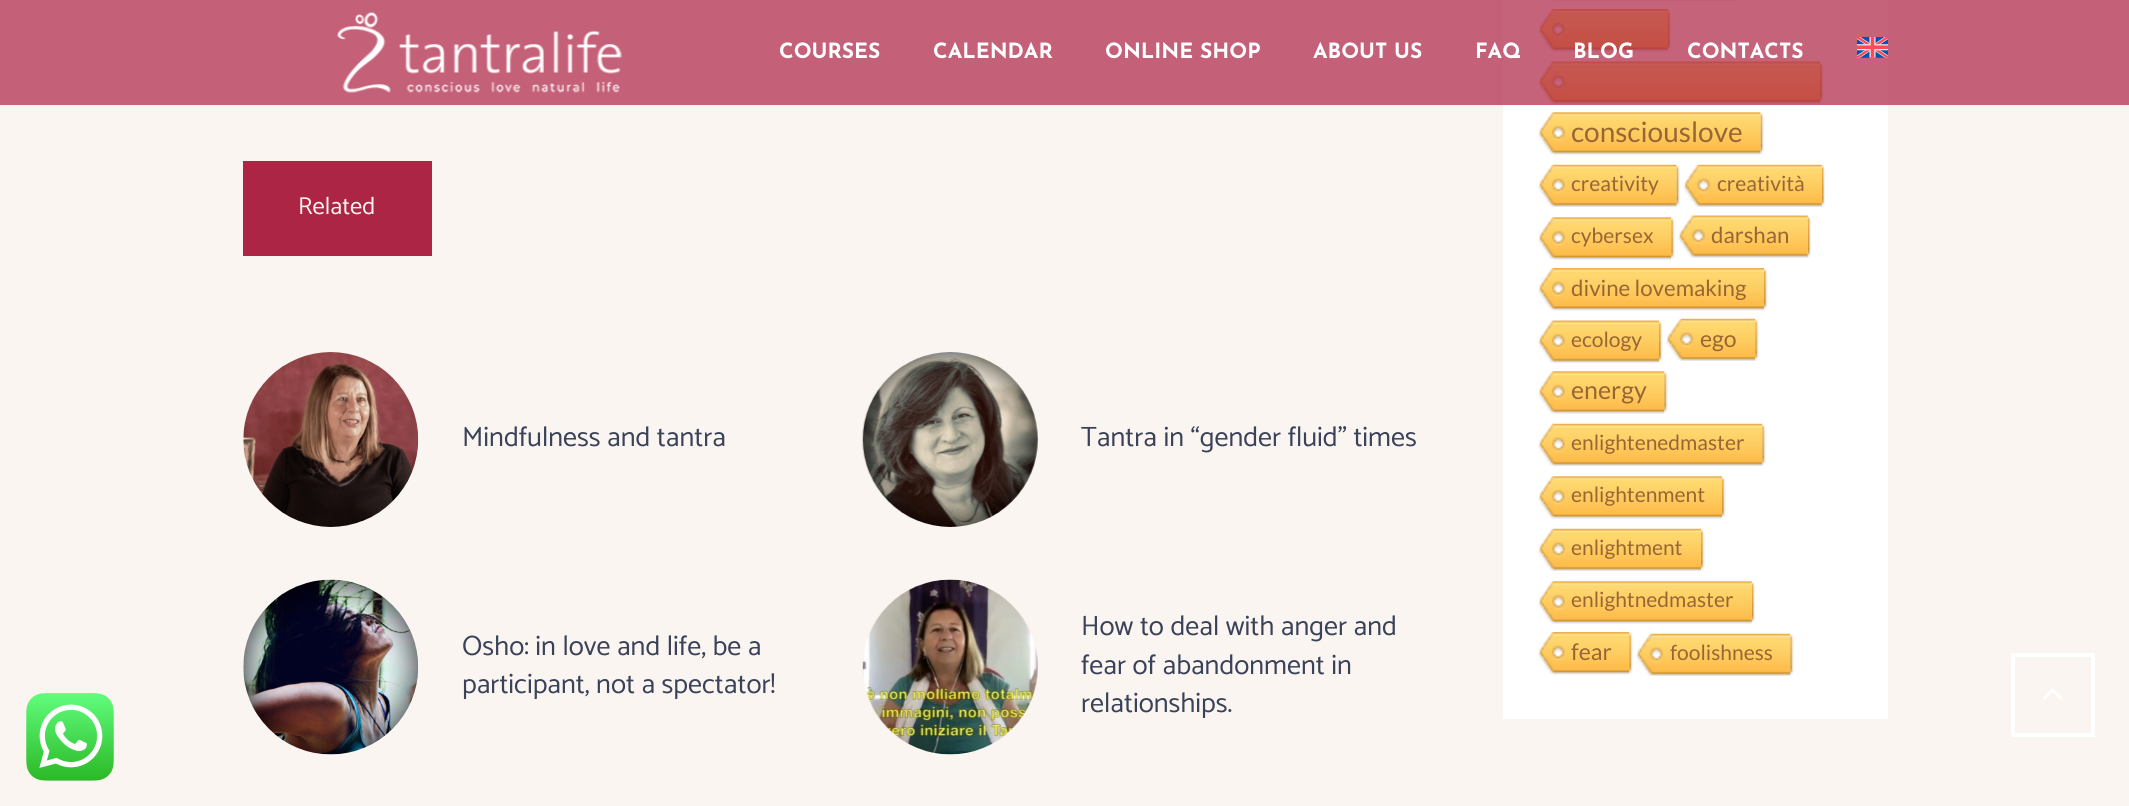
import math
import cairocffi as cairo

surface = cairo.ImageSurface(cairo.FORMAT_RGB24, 2129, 806)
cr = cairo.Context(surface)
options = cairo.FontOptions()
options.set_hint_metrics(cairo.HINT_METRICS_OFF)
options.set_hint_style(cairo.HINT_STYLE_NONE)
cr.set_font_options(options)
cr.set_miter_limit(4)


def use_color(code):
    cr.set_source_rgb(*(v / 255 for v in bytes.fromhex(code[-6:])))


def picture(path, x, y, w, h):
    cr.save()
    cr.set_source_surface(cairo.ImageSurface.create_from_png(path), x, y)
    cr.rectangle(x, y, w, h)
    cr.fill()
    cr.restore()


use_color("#faf5f0")
cr.paint()
use_color("#ffffff")
cr.rectangle(1503, 0, 385, 719)
cr.fill()
picture("img7.png", 1552, 0, 188, 1)
picture("img8.png", 1538, 9, 130, 43)
picture("img9.png", 1667, 9, 4, 42)
picture("img10.png", 1538, 61, 282, 43)
picture("img11.png", 1820, 62, 4, 42)
cr.set_source_rgba(0.678, 0.133, 0.267, 0.7)
cr.rectangle(0, 0, 2129, 105)
cr.fill()
picture("img1.png", 337, 12, 285, 81)
cr.select_font_face("Josefin Sans", cairo.FONT_SLANT_NORMAL, cairo.FONT_WEIGHT_BOLD)
cr.set_font_size(21)
use_color("#ffffff")
cr.move_to(779, 58)
cr.show_text("COURSES")
cr.move_to(933, 58)
cr.show_text("CALENDAR")
cr.move_to(1105, 58)
cr.show_text("ONLINE SHOP")
cr.move_to(1313, 58)
cr.show_text("ABOUT US")
cr.move_to(1475, 58)
cr.show_text("FAQ")
cr.move_to(1573, 58)
cr.show_text("BLOG")
cr.move_to(1687, 58)
cr.show_text("CONTACTS")
picture("img2.png", 1857, 37, 31, 21)
use_color("#ac2544")
cr.rectangle(243, 161, 189, 95)
cr.fill()
cr.select_font_face("Catamaran")
cr.set_font_size(24.5)
use_color("#faf5f0")
cr.move_to(298, 214)
cr.show_text("Related")
picture("img3.png", 243, 352, 176, 175)
cr.set_font_size(28)
use_color("#3a4259")
cr.move_to(462, 446)
cr.show_text("Mindfulness and tantra")
picture("img4.png", 862, 352, 176, 175)
cr.move_to(1081, 446)
cr.show_text("Tantra in “gender fluid” times")
picture("img5.png", 243, 579, 176, 176)
cr.move_to(462, 655)
cr.show_text("Osho: in love and life, be a")
cr.move_to(462, 693)
cr.show_text("participant, not a spectator!")
picture("img6.png", 862, 579, 176, 176)
cr.move_to(1081, 635)
cr.show_text("How to deal with anger and")
cr.move_to(1081, 674)
cr.show_text("fear of abandonment in")
cr.move_to(1081, 712)
cr.show_text("relationships.")
picture("img12.png", 1538, 112, 223, 43)
cr.select_font_face("Lato")
use_color("#996633")
cr.move_to(1571, 142)
cr.show_text("consciouslove")
picture("img13.png", 1760, 113, 4, 41)
picture("img14.png", 1538, 164, 139, 43)
cr.set_font_size(21)
cr.move_to(1571, 191)
cr.show_text("creativity")
picture("img15.png", 1676, 166, 4, 41)
picture("img16.png", 1683, 164, 139, 43)
cr.move_to(1717, 191)
cr.show_text("creatività")
picture("img17.png", 1821, 165, 4, 42)
picture("img18.png", 1538, 217, 134, 43)
cr.move_to(1571, 243)
cr.show_text("cybersex")
picture("img19.png", 1671, 218, 4, 41)
picture("img20.png", 1678, 215, 130, 43)
cr.set_font_size(22.25)
cr.move_to(1711, 243)
cr.show_text("darshan")
picture("img21.png", 1807, 216, 4, 42)
picture("img22.png", 1538, 268, 226, 43)
cr.move_to(1571, 296)
cr.show_text("divine lovemaking")
picture("img23.png", 1764, 268, 4, 42)
picture("img24.png", 1538, 320, 121, 43)
cr.set_font_size(21)
cr.move_to(1571, 347)
cr.show_text("ecology")
picture("img11.png", 1659, 321, 4, 42)
picture("img25.png", 1666, 318, 90, 43)
cr.set_font_size(23)
cr.move_to(1700, 347)
cr.show_text("ego")
picture("img26.png", 1755, 320, 4, 41)
picture("img27.png", 1538, 371, 127, 43)
cr.set_font_size(25)
cr.move_to(1571, 399)
cr.show_text("energy")
picture("img19.png", 1664, 372, 4, 41)
picture("img28.png", 1538, 423, 225, 43)
cr.set_font_size(21)
cr.move_to(1571, 450)
cr.show_text("enlightenedmaster")
picture("img26.png", 1762, 425, 4, 41)
picture("img29.png", 1538, 476, 184, 43)
cr.move_to(1571, 502)
cr.show_text("enlightenment")
picture("img30.png", 1722, 477, 4, 41)
picture("img31.png", 1538, 528, 163, 43)
cr.move_to(1571, 555)
cr.show_text("enlightment")
picture("img32.png", 1701, 529, 4, 42)
picture("img33.png", 1538, 581, 214, 43)
cr.move_to(1571, 607)
cr.show_text("enlightnedmaster")
picture("img34.png", 1751, 582, 4, 41)
picture("img35.png", 1538, 632, 92, 43)
cr.set_font_size(23)
cr.move_to(1571, 660)
cr.show_text("fear")
picture("img36.png", 1629, 633, 4, 41)
picture("img37.png", 1636, 633, 155, 43)
cr.set_font_size(21)
cr.move_to(1670, 660)
cr.show_text("foolishness")
picture("img26.png", 1790, 635, 4, 41)
cr.rectangle(2013, 655, 80, 80)
use_color("#ffffff")
cr.set_line_width(4)
cr.stroke()
picture("img38.png", 2043, 688, 19, 12)
picture("img39.png", 26, 693, 88, 88)
surface.write_to_png("result.png")
